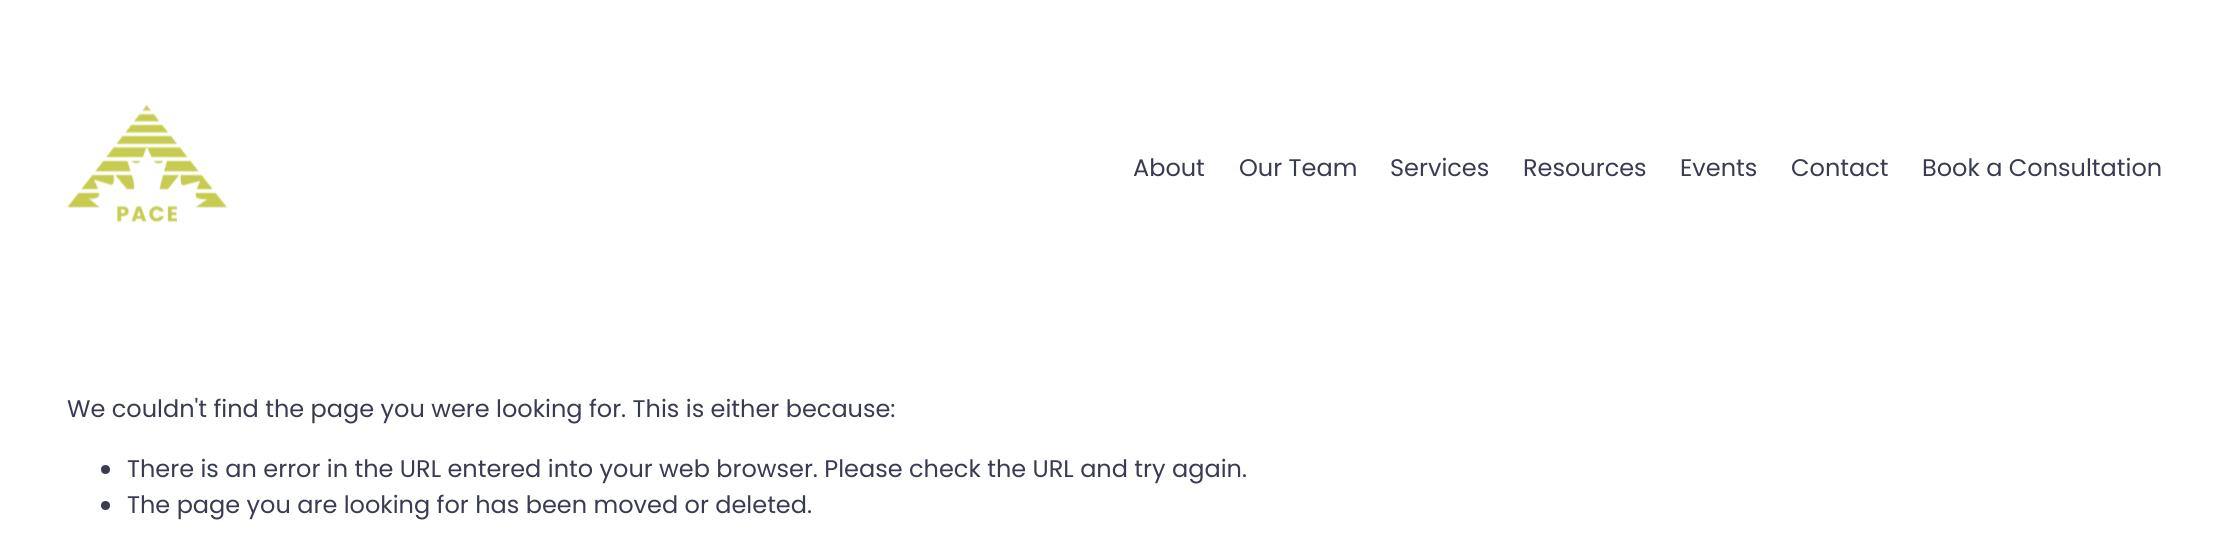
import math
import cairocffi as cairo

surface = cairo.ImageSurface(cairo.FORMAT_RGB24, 2229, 546)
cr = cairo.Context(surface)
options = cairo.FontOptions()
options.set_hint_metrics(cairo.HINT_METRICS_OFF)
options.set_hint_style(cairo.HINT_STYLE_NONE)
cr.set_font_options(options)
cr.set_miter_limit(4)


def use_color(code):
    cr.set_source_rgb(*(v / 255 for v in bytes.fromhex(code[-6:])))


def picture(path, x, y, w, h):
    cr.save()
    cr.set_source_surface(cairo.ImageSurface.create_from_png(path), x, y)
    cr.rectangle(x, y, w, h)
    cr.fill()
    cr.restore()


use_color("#ffffff")
cr.paint()
picture("img1.png", 67, 104, 160, 119)
cr.select_font_face("Poppins")
cr.set_font_size(24)
use_color("#383b52")
cr.move_to(1133, 176)
cr.show_text("About")
cr.move_to(1239, 176)
cr.show_text("Our Team")
cr.move_to(1390, 176)
cr.show_text("Services")
cr.move_to(1523, 176)
cr.show_text("Resources")
cr.move_to(1680, 176)
cr.show_text("Events")
cr.move_to(1791, 176)
cr.show_text("Contact")
cr.move_to(1922, 176)
cr.show_text("Book a Consultation")
cr.move_to(67, 417)
cr.show_text("We couldn't find the page you were looking for. This is either because:")
cr.new_path()
cr.arc(105.5, 469.5, 4.5, 0, 2 * math.pi)
cr.fill()
cr.move_to(127, 477)
cr.show_text("There is an error in the URL entered into your web browser. Please check the URL and try again.")
cr.new_path()
cr.arc(105.5, 505.5, 4.5, 0, 2 * math.pi)
cr.fill()
cr.move_to(127, 513)
cr.show_text("The page you are looking for has been moved or deleted.")
surface.write_to_png("result.png")
